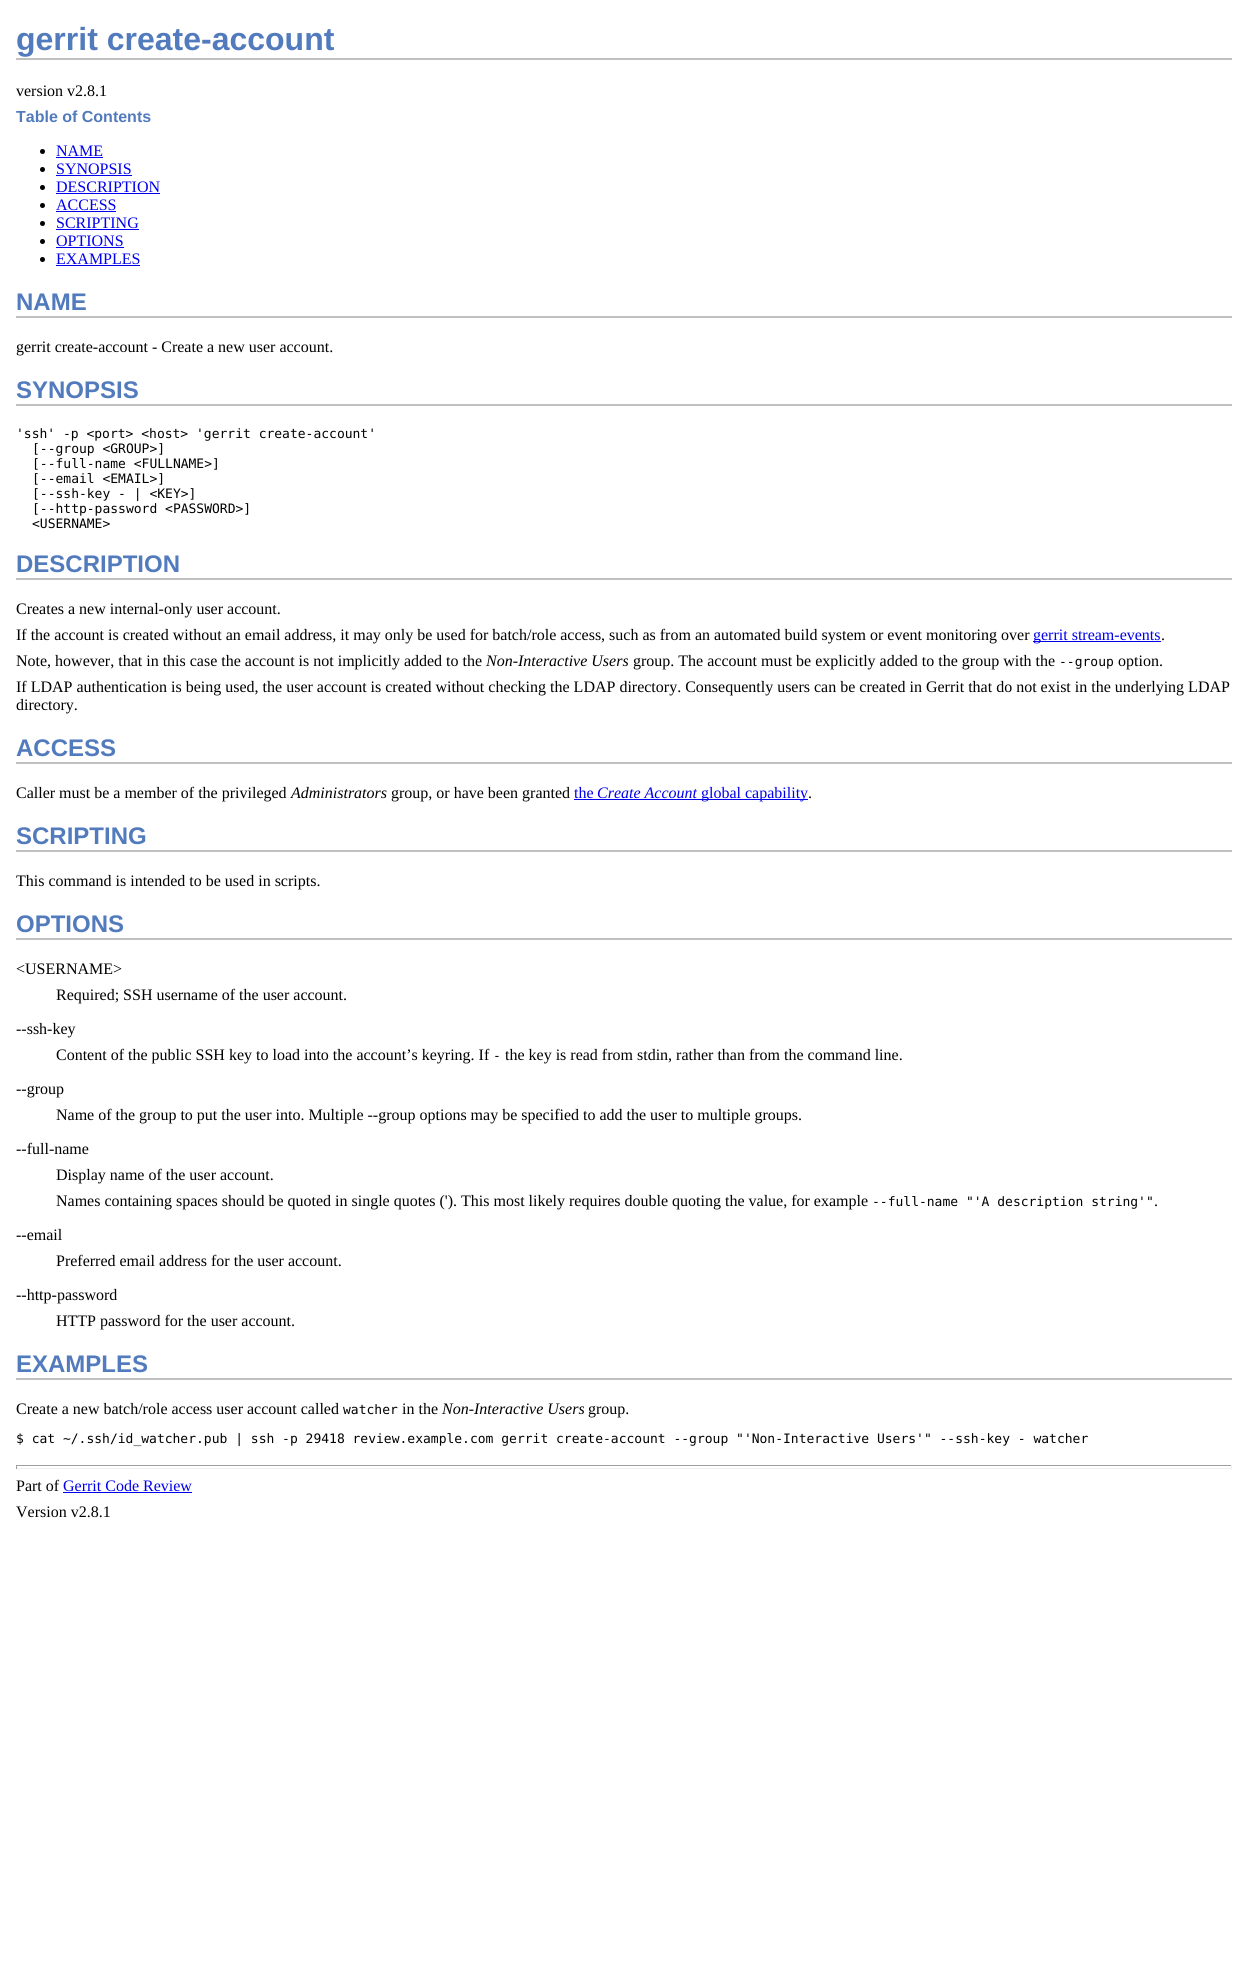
import math
import cairocffi as cairo

surface = cairo.ImageSurface(cairo.FORMAT_RGB24, 1248, 1963)
cr = cairo.Context(surface)
options = cairo.FontOptions()
options.set_hint_metrics(cairo.HINT_METRICS_OFF)
options.set_hint_style(cairo.HINT_STYLE_NONE)
cr.set_font_options(options)
cr.set_miter_limit(4)


def use_color(code):
    cr.set_source_rgb(*(v / 255 for v in bytes.fromhex(code[-6:])))


use_color("#ffffff")
cr.paint()
use_color("#c0c0c0")
cr.rectangle(16, 58, 1216, 2)
cr.fill()
cr.select_font_face("Liberation Sans", cairo.FONT_SLANT_NORMAL, cairo.FONT_WEIGHT_BOLD)
cr.set_font_size(32)
use_color("#527bbd")
cr.move_to(16, 50)
cr.show_text("gerrit create-account")
cr.select_font_face("Liberation Serif")
cr.set_font_size(16)
use_color("#000000")
cr.move_to(16, 96)
cr.show_text("version v2.8.1")
cr.select_font_face("Liberation Sans", cairo.FONT_SLANT_NORMAL, cairo.FONT_WEIGHT_BOLD)
use_color("#527bbd")
cr.move_to(16, 122)
cr.show_text("Table of Contents")
use_color("#000000")
cr.new_path()
cr.arc(42.5, 151.5, 2.5, 0, 2 * math.pi)
cr.fill()
cr.select_font_face("Liberation Serif")
use_color("#0000ee")
cr.move_to(56, 156)
cr.show_text("NAME")
cr.rectangle(56, 157, 47, 1)
cr.fill()
use_color("#000000")
cr.arc(42.5, 169.5, 2.5, 0, 2 * math.pi)
cr.fill()
use_color("#0000ee")
cr.move_to(56, 174)
cr.show_text("SYNOPSIS")
cr.rectangle(56, 175, 76, 1)
cr.fill()
use_color("#000000")
cr.arc(42.5, 187.5, 2.5, 0, 2 * math.pi)
cr.fill()
use_color("#0000ee")
cr.move_to(56, 192)
cr.show_text("DESCRIPTION")
cr.rectangle(56, 193, 104, 1)
cr.fill()
use_color("#000000")
cr.arc(42.5, 205.5, 2.5, 0, 2 * math.pi)
cr.fill()
use_color("#0000ee")
cr.move_to(56, 210)
cr.show_text("ACCESS")
cr.rectangle(56, 211, 60, 1)
cr.fill()
use_color("#000000")
cr.arc(42.5, 223.5, 2.5, 0, 2 * math.pi)
cr.fill()
use_color("#0000ee")
cr.move_to(56, 228)
cr.show_text("SCRIPTING")
cr.rectangle(56, 229, 83, 1)
cr.fill()
use_color("#000000")
cr.arc(42.5, 241.5, 2.5, 0, 2 * math.pi)
cr.fill()
use_color("#0000ee")
cr.move_to(56, 246)
cr.show_text("OPTIONS")
cr.rectangle(56, 247, 68, 1)
cr.fill()
use_color("#000000")
cr.arc(42.5, 259.5, 2.5, 0, 2 * math.pi)
cr.fill()
use_color("#0000ee")
cr.move_to(56, 264)
cr.show_text("EXAMPLES")
cr.rectangle(56, 265, 84, 1)
cr.fill()
use_color("#c0c0c0")
cr.rectangle(16, 316, 1216, 2)
cr.fill()
cr.select_font_face("Liberation Sans", cairo.FONT_SLANT_NORMAL, cairo.FONT_WEIGHT_BOLD)
cr.set_font_size(24)
use_color("#527bbd")
cr.move_to(16, 310)
cr.show_text("NAME")
cr.select_font_face("Liberation Serif")
cr.set_font_size(16)
use_color("#000000")
cr.move_to(16, 352)
cr.show_text("gerrit create-account - Create a new user account.")
use_color("#c0c0c0")
cr.rectangle(16, 404, 1216, 2)
cr.fill()
cr.select_font_face("Liberation Sans", cairo.FONT_SLANT_NORMAL, cairo.FONT_WEIGHT_BOLD)
cr.set_font_size(24)
use_color("#527bbd")
cr.move_to(16, 398)
cr.show_text("SYNOPSIS")
cr.select_font_face("DejaVu Sans Mono")
cr.set_font_size(13)
use_color("#000000")
cr.move_to(16, 438)
cr.show_text("'ssh' -p <port> <host> 'gerrit create-account'")
cr.move_to(32, 453)
cr.show_text("[--group <GROUP>]")
cr.move_to(32, 468)
cr.show_text("[--full-name <FULLNAME>]")
cr.move_to(32, 483)
cr.show_text("[--email <EMAIL>]")
cr.move_to(32, 498)
cr.show_text("[--ssh-key - | <KEY>]")
cr.move_to(32, 513)
cr.show_text("[--http-password <PASSWORD>]")
cr.move_to(32, 528)
cr.show_text("<USERNAME>")
use_color("#c0c0c0")
cr.rectangle(16, 578, 1216, 2)
cr.fill()
cr.select_font_face("Liberation Sans", cairo.FONT_SLANT_NORMAL, cairo.FONT_WEIGHT_BOLD)
cr.set_font_size(24)
use_color("#527bbd")
cr.move_to(16, 572)
cr.show_text("DESCRIPTION")
cr.select_font_face("Liberation Serif")
cr.set_font_size(16)
use_color("#000000")
cr.move_to(16, 614)
cr.show_text("Creates a new internal-only user account.")
cr.move_to(16, 640)
cr.show_text("If the account is created without an email address, it may only be used for batch/role access, such as from an automated build system or event monitoring over")
use_color("#0000ee")
cr.rectangle(1033, 641, 128, 1)
cr.fill()
cr.move_to(1033, 640)
cr.show_text("gerrit stream-events")
use_color("#000000")
cr.move_to(1161, 640)
cr.show_text(".")
cr.move_to(16, 666)
cr.show_text("Note, however, that in this case the account is not implicitly added to the")
cr.select_font_face("Liberation Serif", cairo.FONT_SLANT_ITALIC)
cr.move_to(486, 666)
cr.show_text("Non-Interactive Users")
cr.select_font_face("Liberation Serif")
cr.move_to(633, 666)
cr.show_text("group. The account must be explicitly added to the group with the")
cr.select_font_face("DejaVu Sans Mono")
cr.set_font_size(13)
cr.move_to(1059, 666)
cr.show_text("--group")
cr.select_font_face("Liberation Serif")
cr.set_font_size(16)
cr.move_to(1118, 666)
cr.show_text("option.")
cr.move_to(16, 692)
cr.show_text("If LDAP authentication is being used, the user account is created without checking the LDAP directory. Consequently users can be created in Gerrit that do not exist in the underlying LDAP")
cr.move_to(16, 710)
cr.show_text("directory.")
use_color("#c0c0c0")
cr.rectangle(16, 762, 1216, 2)
cr.fill()
cr.select_font_face("Liberation Sans", cairo.FONT_SLANT_NORMAL, cairo.FONT_WEIGHT_BOLD)
cr.set_font_size(24)
use_color("#527bbd")
cr.move_to(16, 756)
cr.show_text("ACCESS")
cr.select_font_face("Liberation Serif")
cr.set_font_size(16)
use_color("#000000")
cr.move_to(16, 798)
cr.show_text("Caller must be a member of the privileged")
cr.select_font_face("Liberation Serif", cairo.FONT_SLANT_ITALIC)
cr.move_to(291, 798)
cr.show_text("Administrators")
cr.select_font_face("Liberation Serif")
cr.move_to(391, 798)
cr.show_text("group, or have been granted")
use_color("#0000ee")
cr.move_to(574, 798)
cr.show_text("the")
cr.select_font_face("Liberation Serif", cairo.FONT_SLANT_ITALIC)
cr.move_to(597, 798)
cr.show_text("Create Account")
cr.rectangle(574, 799, 234, 1)
cr.fill()
cr.select_font_face("Liberation Serif")
cr.move_to(701, 798)
cr.show_text("global capability")
use_color("#000000")
cr.move_to(808, 798)
cr.show_text(".")
use_color("#c0c0c0")
cr.rectangle(16, 850, 1216, 2)
cr.fill()
cr.select_font_face("Liberation Sans", cairo.FONT_SLANT_NORMAL, cairo.FONT_WEIGHT_BOLD)
cr.set_font_size(24)
use_color("#527bbd")
cr.move_to(16, 844)
cr.show_text("SCRIPTING")
cr.select_font_face("Liberation Serif")
cr.set_font_size(16)
use_color("#000000")
cr.move_to(16, 886)
cr.show_text("This command is intended to be used in scripts.")
use_color("#c0c0c0")
cr.rectangle(16, 938, 1216, 2)
cr.fill()
cr.select_font_face("Liberation Sans", cairo.FONT_SLANT_NORMAL, cairo.FONT_WEIGHT_BOLD)
cr.set_font_size(24)
use_color("#527bbd")
cr.move_to(16, 932)
cr.show_text("OPTIONS")
cr.select_font_face("Liberation Serif")
cr.set_font_size(16)
use_color("#000000")
cr.move_to(16, 974)
cr.show_text("<USERNAME>")
cr.move_to(56, 1000)
cr.show_text("Required; SSH username of the user account.")
cr.move_to(16, 1034)
cr.show_text("--ssh-key")
cr.move_to(56, 1060)
cr.show_text("Content of the public SSH key to load into the account’s keyring. If")
cr.select_font_face("DejaVu Sans Mono")
cr.set_font_size(13)
cr.move_to(493, 1060)
cr.show_text("-")
cr.select_font_face("Liberation Serif")
cr.set_font_size(16)
cr.move_to(505, 1060)
cr.show_text("the key is read from stdin, rather than from the command line.")
cr.move_to(16, 1094)
cr.show_text("--group")
cr.move_to(56, 1120)
cr.show_text("Name of the group to put the user into. Multiple --group options may be specified to add the user to multiple groups.")
cr.move_to(16, 1154)
cr.show_text("--full-name")
cr.move_to(56, 1180)
cr.show_text("Display name of the user account.")
cr.move_to(56, 1206)
cr.show_text("Names containing spaces should be quoted in single quotes ('). This most likely requires double quoting the value, for example")
cr.select_font_face("DejaVu Sans Mono")
cr.set_font_size(13)
cr.move_to(872, 1206)
cr.show_text("--full-name \"'A description string'\"")
cr.select_font_face("Liberation Serif")
cr.set_font_size(16)
cr.move_to(1154, 1206)
cr.show_text(".")
cr.move_to(16, 1240)
cr.show_text("--email")
cr.move_to(56, 1266)
cr.show_text("Preferred email address for the user account.")
cr.move_to(16, 1300)
cr.show_text("--http-password")
cr.move_to(56, 1326)
cr.show_text("HTTP password for the user account.")
use_color("#c0c0c0")
cr.rectangle(16, 1378, 1216, 2)
cr.fill()
cr.select_font_face("Liberation Sans", cairo.FONT_SLANT_NORMAL, cairo.FONT_WEIGHT_BOLD)
cr.set_font_size(24)
use_color("#527bbd")
cr.move_to(16, 1372)
cr.show_text("EXAMPLES")
cr.select_font_face("Liberation Serif")
cr.set_font_size(16)
use_color("#000000")
cr.move_to(16, 1414)
cr.show_text("Create a new batch/role access user account called")
cr.select_font_face("DejaVu Sans Mono")
cr.set_font_size(13)
cr.move_to(343, 1414)
cr.show_text("watcher")
cr.select_font_face("Liberation Serif")
cr.set_font_size(16)
cr.move_to(402, 1414)
cr.show_text("in the")
cr.select_font_face("Liberation Serif", cairo.FONT_SLANT_ITALIC)
cr.move_to(442, 1414)
cr.show_text("Non-Interactive Users")
cr.select_font_face("Liberation Serif")
cr.move_to(588, 1414)
cr.show_text("group.")
cr.select_font_face("DejaVu Sans Mono")
cr.set_font_size(13)
cr.move_to(16, 1443)
cr.show_text("$ cat ~/.ssh/id_watcher.pub | ssh -p 29418 review.example.com gerrit create-account --group \"'Non-Interactive Users'\" --ssh-key - watcher")
use_color("#9f9f9f")
cr.rectangle(16, 1465, 1216, 1)
cr.fill()
use_color("#eeeeee")
cr.rectangle(1231, 1465, 1, 4)
cr.fill()
cr.rectangle(16, 1468, 1216, 1)
cr.fill()
use_color("#9f9f9f")
cr.rectangle(16, 1465, 1, 4)
cr.fill()
cr.select_font_face("Liberation Serif")
cr.set_font_size(16)
use_color("#000000")
cr.move_to(16, 1491)
cr.show_text("Part of")
use_color("#0000ee")
cr.move_to(63, 1491)
cr.show_text("Gerrit Code Review")
cr.rectangle(63, 1492, 129, 1)
cr.fill()
use_color("#000000")
cr.move_to(16, 1517)
cr.show_text("Version v2.8.1")
surface.write_to_png("result.png")
